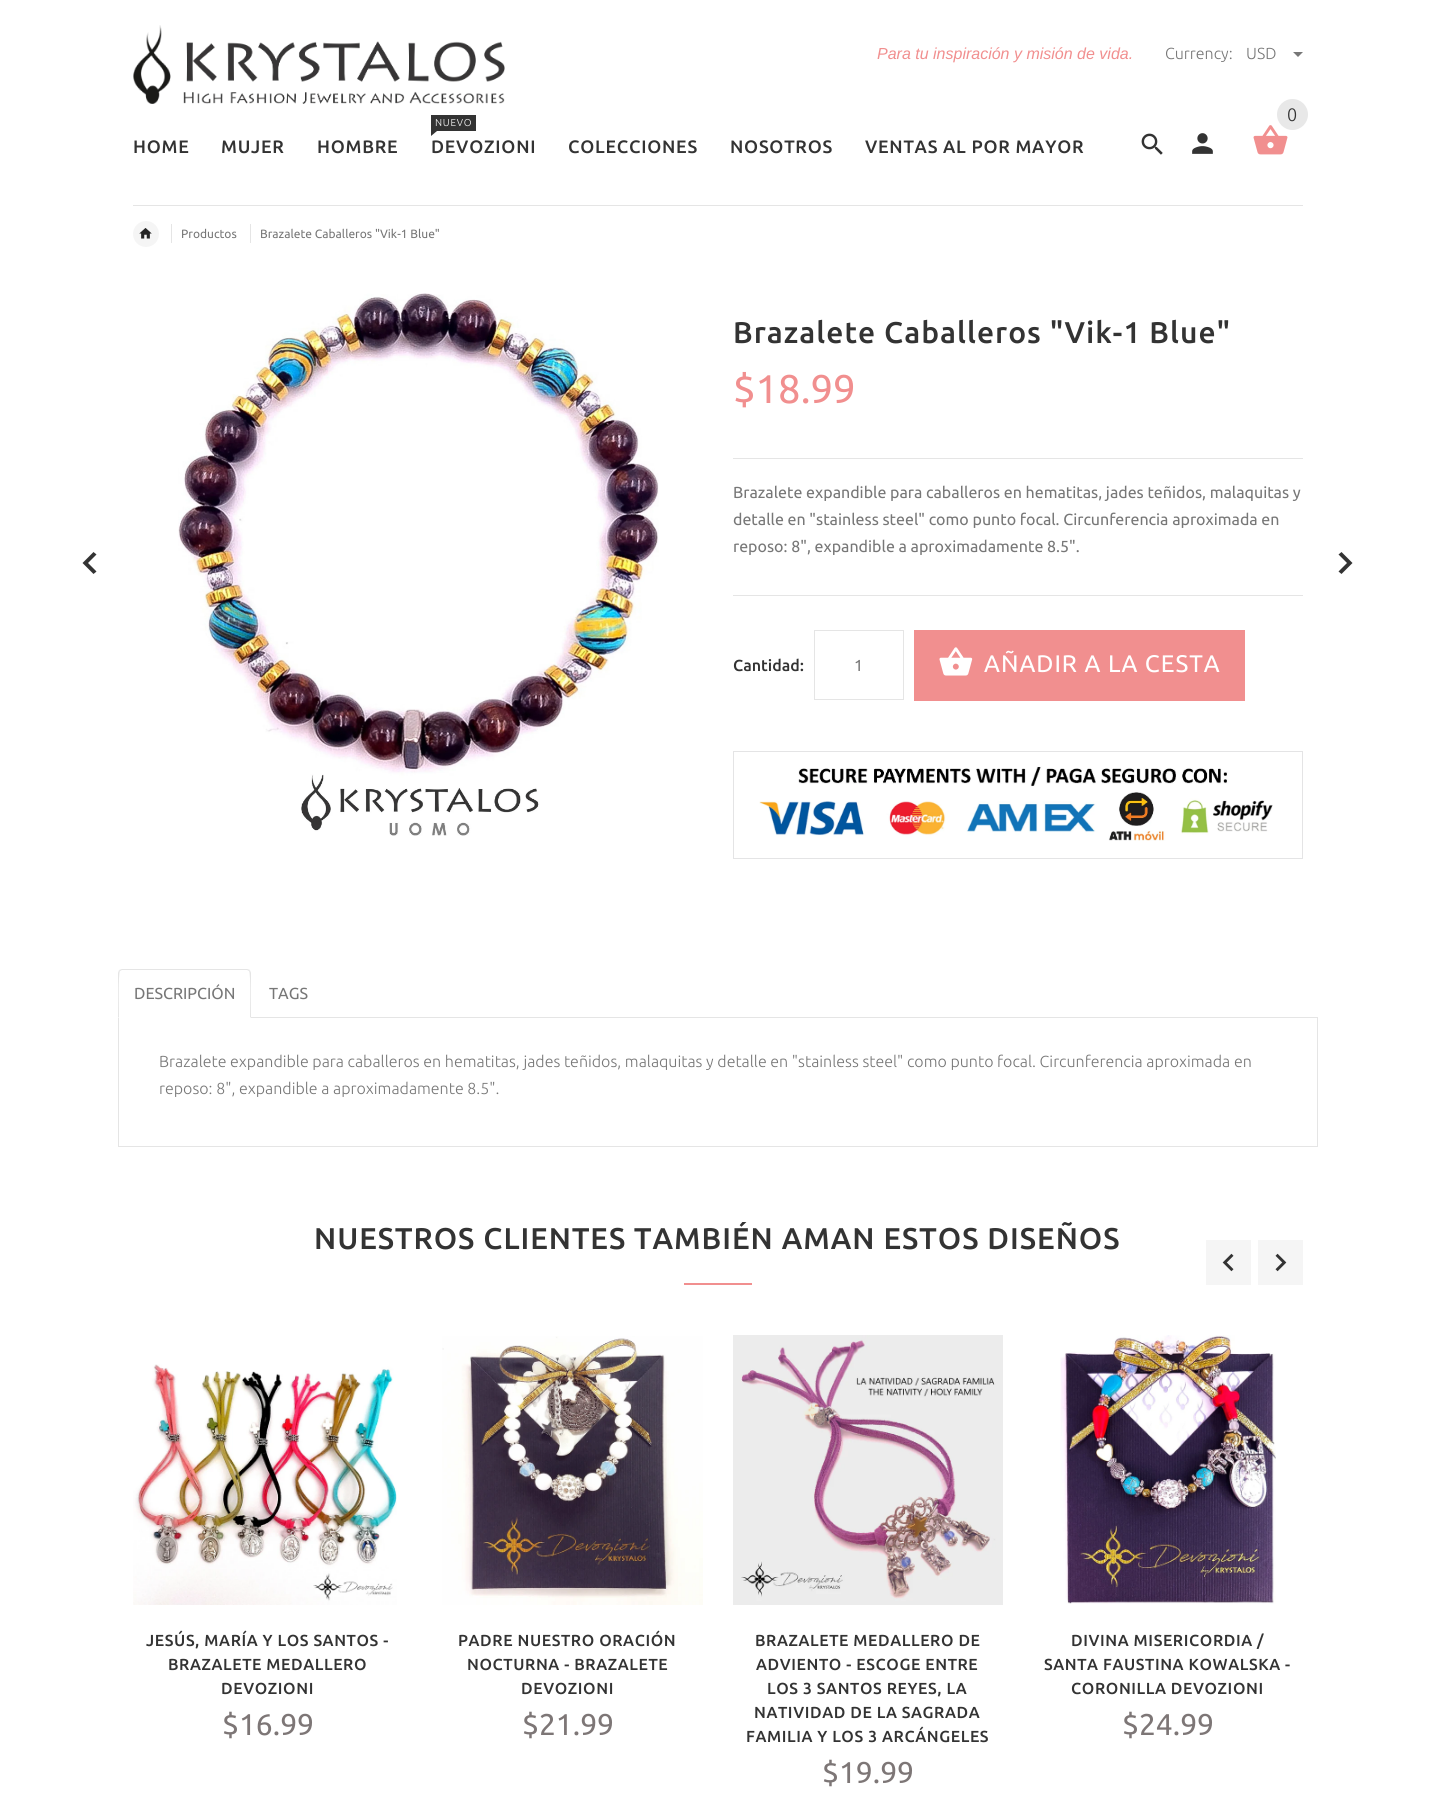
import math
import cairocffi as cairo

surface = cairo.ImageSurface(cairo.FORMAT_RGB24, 1435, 1808)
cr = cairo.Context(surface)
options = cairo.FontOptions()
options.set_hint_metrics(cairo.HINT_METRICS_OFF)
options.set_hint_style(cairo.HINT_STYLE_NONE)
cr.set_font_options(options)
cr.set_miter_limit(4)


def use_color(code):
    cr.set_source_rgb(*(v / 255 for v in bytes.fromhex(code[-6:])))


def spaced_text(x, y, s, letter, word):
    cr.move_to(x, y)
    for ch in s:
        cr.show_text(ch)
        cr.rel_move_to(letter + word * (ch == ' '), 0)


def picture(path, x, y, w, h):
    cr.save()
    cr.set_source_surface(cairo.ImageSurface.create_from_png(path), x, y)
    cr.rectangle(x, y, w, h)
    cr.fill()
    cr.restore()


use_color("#ffffff")
cr.paint()
picture("img1.png", 133, 25, 372, 79)
cr.select_font_face("Liberation Sans", cairo.FONT_SLANT_ITALIC)
cr.set_font_size(16)
use_color("#f18f8f")
cr.move_to(877, 59)
cr.show_text("Para tu inspiración y misión de vida.")
cr.select_font_face("Ubuntu Light")
use_color("#777777")
cr.move_to(1165, 59)
cr.show_text("Currency:")
cr.move_to(1246, 59)
cr.show_text("USD")
cr.new_path()
cr.move_to(1293, 52)
cr.line_to(1303, 52)
cr.line_to(1298, 57)
cr.close_path()
cr.fill()
picture("img2.png", 1253, 125, 35, 30)
use_color("#e8e8e8")
cr.arc(1292.5, 114.5, 15.5, 0, 2 * math.pi)
cr.fill()
cr.set_font_size(18)
use_color("#333333")
cr.move_to(1287, 121)
cr.show_text("0")
picture("img3.png", 1141, 133, 22, 22)
picture("img4.png", 1192, 133, 21, 21)
cr.select_font_face("Ubuntu Medium")
spaced_text(133, 153, "HOME", 0.75, 0)
spaced_text(221, 153, "MUJER", 0.75, 0)
spaced_text(317, 153, "HOMBRE", 0.75, 0)
cr.rectangle(431, 115, 45, 16)
cr.fill()
cr.select_font_face("Ubuntu Light")
cr.set_font_size(10)
use_color("#ffffff")
spaced_text(435, 126, "NUEVO", 0.75, 0)
use_color("#333333")
cr.new_path()
cr.move_to(431, 131)
cr.line_to(437, 131)
cr.line_to(431, 136)
cr.close_path()
cr.fill()
cr.select_font_face("Ubuntu Medium")
cr.set_font_size(18)
spaced_text(431, 153, "DEVOZIONI", 0.75, 0)
spaced_text(568, 153, "COLECCIONES", 0.75, 0)
spaced_text(730, 153, "NOSOTROS", 0.75, 0)
spaced_text(865, 153, "VENTAS AL POR MAYOR", 0.75, 0)
use_color("#e5e5e5")
cr.rectangle(133, 205, 1170, 1)
cr.fill()
use_color("#f5f5f5")
cr.arc(146, 234, 13, 0, 2 * math.pi)
cr.fill()
picture("img5.png", 139, 228, 13, 11)
use_color("#e5e5e5")
cr.rectangle(171, 224, 1, 19)
cr.fill()
cr.select_font_face("Ubuntu")
cr.set_font_size(12)
use_color("#777777")
cr.move_to(181, 238)
cr.show_text("Productos")
use_color("#e5e5e5")
cr.rectangle(250, 224, 1, 19)
cr.fill()
use_color("#777777")
cr.move_to(260, 238)
cr.show_text("Brazalete Caballeros \"Vik-1 Blue\"")
picture("img6.png", 178, 293, 481, 543)
cr.select_font_face("Ubuntu Medium")
cr.set_font_size(30)
use_color("#333333")
spaced_text(733, 343, "Brazalete Caballeros \"Vik-1 Blue\"", 1, 0)
cr.select_font_face("Ubuntu")
cr.set_font_size(40)
use_color("#f18f8f")
cr.move_to(733, 403)
cr.show_text("$18.99")
use_color("#e5e5e5")
cr.rectangle(733, 458, 570, 1)
cr.fill()
cr.set_font_size(16)
use_color("#777777")
cr.move_to(733, 498)
cr.show_text("Brazalete expandible para caballeros en hematitas, jades teñidos, malaquitas y")
cr.move_to(733, 525)
cr.show_text("detalle en \"stainless steel\" como punto focal. Circunferencia aproximada en")
cr.move_to(733, 552)
cr.show_text("reposo: 8\", expandible a aproximadamente 8.5\".")
use_color("#e5e5e5")
cr.rectangle(733, 595, 570, 1)
cr.fill()
cr.select_font_face("Ubuntu Medium")
use_color("#333333")
cr.move_to(733, 671)
cr.show_text("Cantidad:")
cr.rectangle(814.5, 630.5, 89, 69)
use_color("#e5e5e5")
cr.set_line_width(1)
cr.stroke()
cr.select_font_face("Ubuntu")
use_color("#777777")
cr.move_to(854, 671)
cr.show_text("1")
use_color("#f18f8f")
cr.rectangle(914, 630, 331, 71)
cr.fill()
picture("img7.png", 939, 647, 34, 29)
cr.set_font_size(24)
use_color("#ffffff")
spaced_text(984, 672, "AÑADIR A LA CESTA", 1, 0)
cr.rectangle(733.5, 751.5, 569, 107)
use_color("#e4e4e5")
cr.stroke()
picture("img8.png", 759, 766, 514, 75)
use_color("#e5e5e5")
cr.rectangle(251, 1017, 1067, 1)
cr.fill()
cr.new_path()
cr.move_to(122, 969)
cr.line_to(119, 970)
cr.line_to(120, 971)
cr.line_to(122, 970)
cr.line_to(247, 970)
cr.line_to(249, 971)
cr.line_to(250, 970)
cr.line_to(247, 969)
cr.close_path()
cr.fill()
cr.new_path()
cr.move_to(251, 1018)
cr.line_to(251, 973)
cr.curve_to(251, 972, 250, 971, 250, 970)
cr.line_to(249, 971)
cr.curve_to(251, 973, 250, 1012, 250, 1017)
cr.close_path()
cr.fill()
cr.new_path()
cr.move_to(118, 1018)
cr.line_to(119, 1017)
cr.curve_to(119, 1012, 118, 973, 120, 971)
cr.line_to(119, 970)
cr.line_to(118, 973)
cr.close_path()
cr.fill()
cr.set_font_size(16)
use_color("#777777")
cr.move_to(134, 999)
cr.show_text("DESCRIPCIÓN")
cr.move_to(269, 999)
cr.show_text("TAGS")
use_color("#e5e5e5")
cr.rectangle(1317, 1018, 1, 129)
cr.fill()
cr.rectangle(118, 1146, 1200, 1)
cr.fill()
cr.rectangle(118, 1018, 1, 129)
cr.fill()
cr.select_font_face("Ubuntu Light")
use_color("#777777")
cr.move_to(159, 1067)
cr.show_text("Brazalete expandible para caballeros en hematitas, jades teñidos, malaquitas y detalle en \"stainless steel\" como punto focal. Circunferencia aproximada en")
cr.move_to(159, 1094)
cr.show_text("reposo: 8\", expandible a aproximadamente 8.5\".")
use_color("#333333")
cr.new_path()
cr.move_to(96.5, 554.5)
cr.line_to(88, 563)
cr.line_to(96.5, 571.5)
cr.line_to(93.5, 574)
cr.line_to(82.5, 563)
cr.line_to(93.5, 552)
cr.close_path()
cr.fill()
cr.new_path()
cr.move_to(1341.5, 552)
cr.line_to(1352.5, 563)
cr.line_to(1341.5, 574)
cr.line_to(1338.5, 571.5)
cr.line_to(1347, 563)
cr.line_to(1338.5, 554.5)
cr.close_path()
cr.fill()
cr.save()
cr.rectangle(133, 1222, 1170, 113)
cr.clip()
cr.select_font_face("Ubuntu Medium")
cr.set_font_size(30)
spaced_text(314, 1249, "NUESTROS CLIENTES TAMBIÉN AMAN ESTOS DISEÑOS", 1, 0)
cr.restore()
use_color("#f18f8f")
cr.rectangle(684, 1283, 68, 2)
cr.fill()
use_color("#f5f5f5")
cr.rectangle(1206, 1240, 45, 45)
cr.fill()
picture("img9.png", 1222, 1253, 12, 19)
cr.rectangle(1258, 1240, 45, 45)
cr.fill()
picture("img10.png", 1275, 1253, 12, 19)
picture("img11.png", 133, 1364, 264, 241)
cr.select_font_face("Ubuntu Medium")
use_color("#333333")
spaced_text(146, 1646, "JESÚS, MARÍA Y LOS SANTOS -", 0.6, 0)
spaced_text(168, 1670, "BRAZALETE MEDALLERO", 0.6, 0)
spaced_text(221, 1694, "DEVOZIONI", 0.6, 0)
cr.select_font_face("Ubuntu")
cr.set_font_size(30)
use_color("#7d7676")
cr.move_to(222, 1735)
cr.show_text("$16.99")
picture("img12.png", 442, 1336, 261, 269)
cr.select_font_face("Ubuntu Medium")
cr.set_font_size(16)
use_color("#333333")
spaced_text(458, 1646, "PADRE NUESTRO ORACIÓN", 0.6, 0)
spaced_text(467, 1670, "NOCTURNA - BRAZALETE", 0.6, 0)
spaced_text(521, 1694, "DEVOZIONI", 0.6, 0)
cr.select_font_face("Ubuntu")
cr.set_font_size(30)
use_color("#7d7676")
cr.move_to(522, 1735)
cr.show_text("$21.99")
picture("img13.png", 733, 1335, 270, 270)
cr.select_font_face("Ubuntu Medium")
cr.set_font_size(16)
use_color("#333333")
spaced_text(755, 1646, "BRAZALETE MEDALLERO DE", 0.6, 0)
spaced_text(756, 1670, "ADVIENTO - ESCOGE ENTRE", 0.6, 0)
spaced_text(767, 1694, "LOS 3 SANTOS REYES, LA", 0.6, 0)
spaced_text(754, 1718, "NATIVIDAD DE LA SAGRADA", 0.6, 0)
spaced_text(746, 1742, "FAMILIA Y LOS 3 ARCÁNGELES", 0.6, 0)
cr.select_font_face("Ubuntu")
cr.set_font_size(30)
use_color("#7d7676")
cr.move_to(822, 1783)
cr.show_text("$19.99")
picture("img14.png", 1060, 1335, 216, 269)
cr.select_font_face("Ubuntu Medium")
cr.set_font_size(16)
use_color("#333333")
spaced_text(1071, 1646, "DIVINA MISERICORDIA /", 0.6, 0)
spaced_text(1044, 1670, "SANTA FAUSTINA KOWALSKA -", 0.6, 0)
spaced_text(1071, 1694, "CORONILLA DEVOZIONI", 0.6, 0)
cr.select_font_face("Ubuntu")
cr.set_font_size(30)
use_color("#7d7676")
cr.move_to(1122, 1735)
cr.show_text("$24.99")
surface.write_to_png("result.png")
